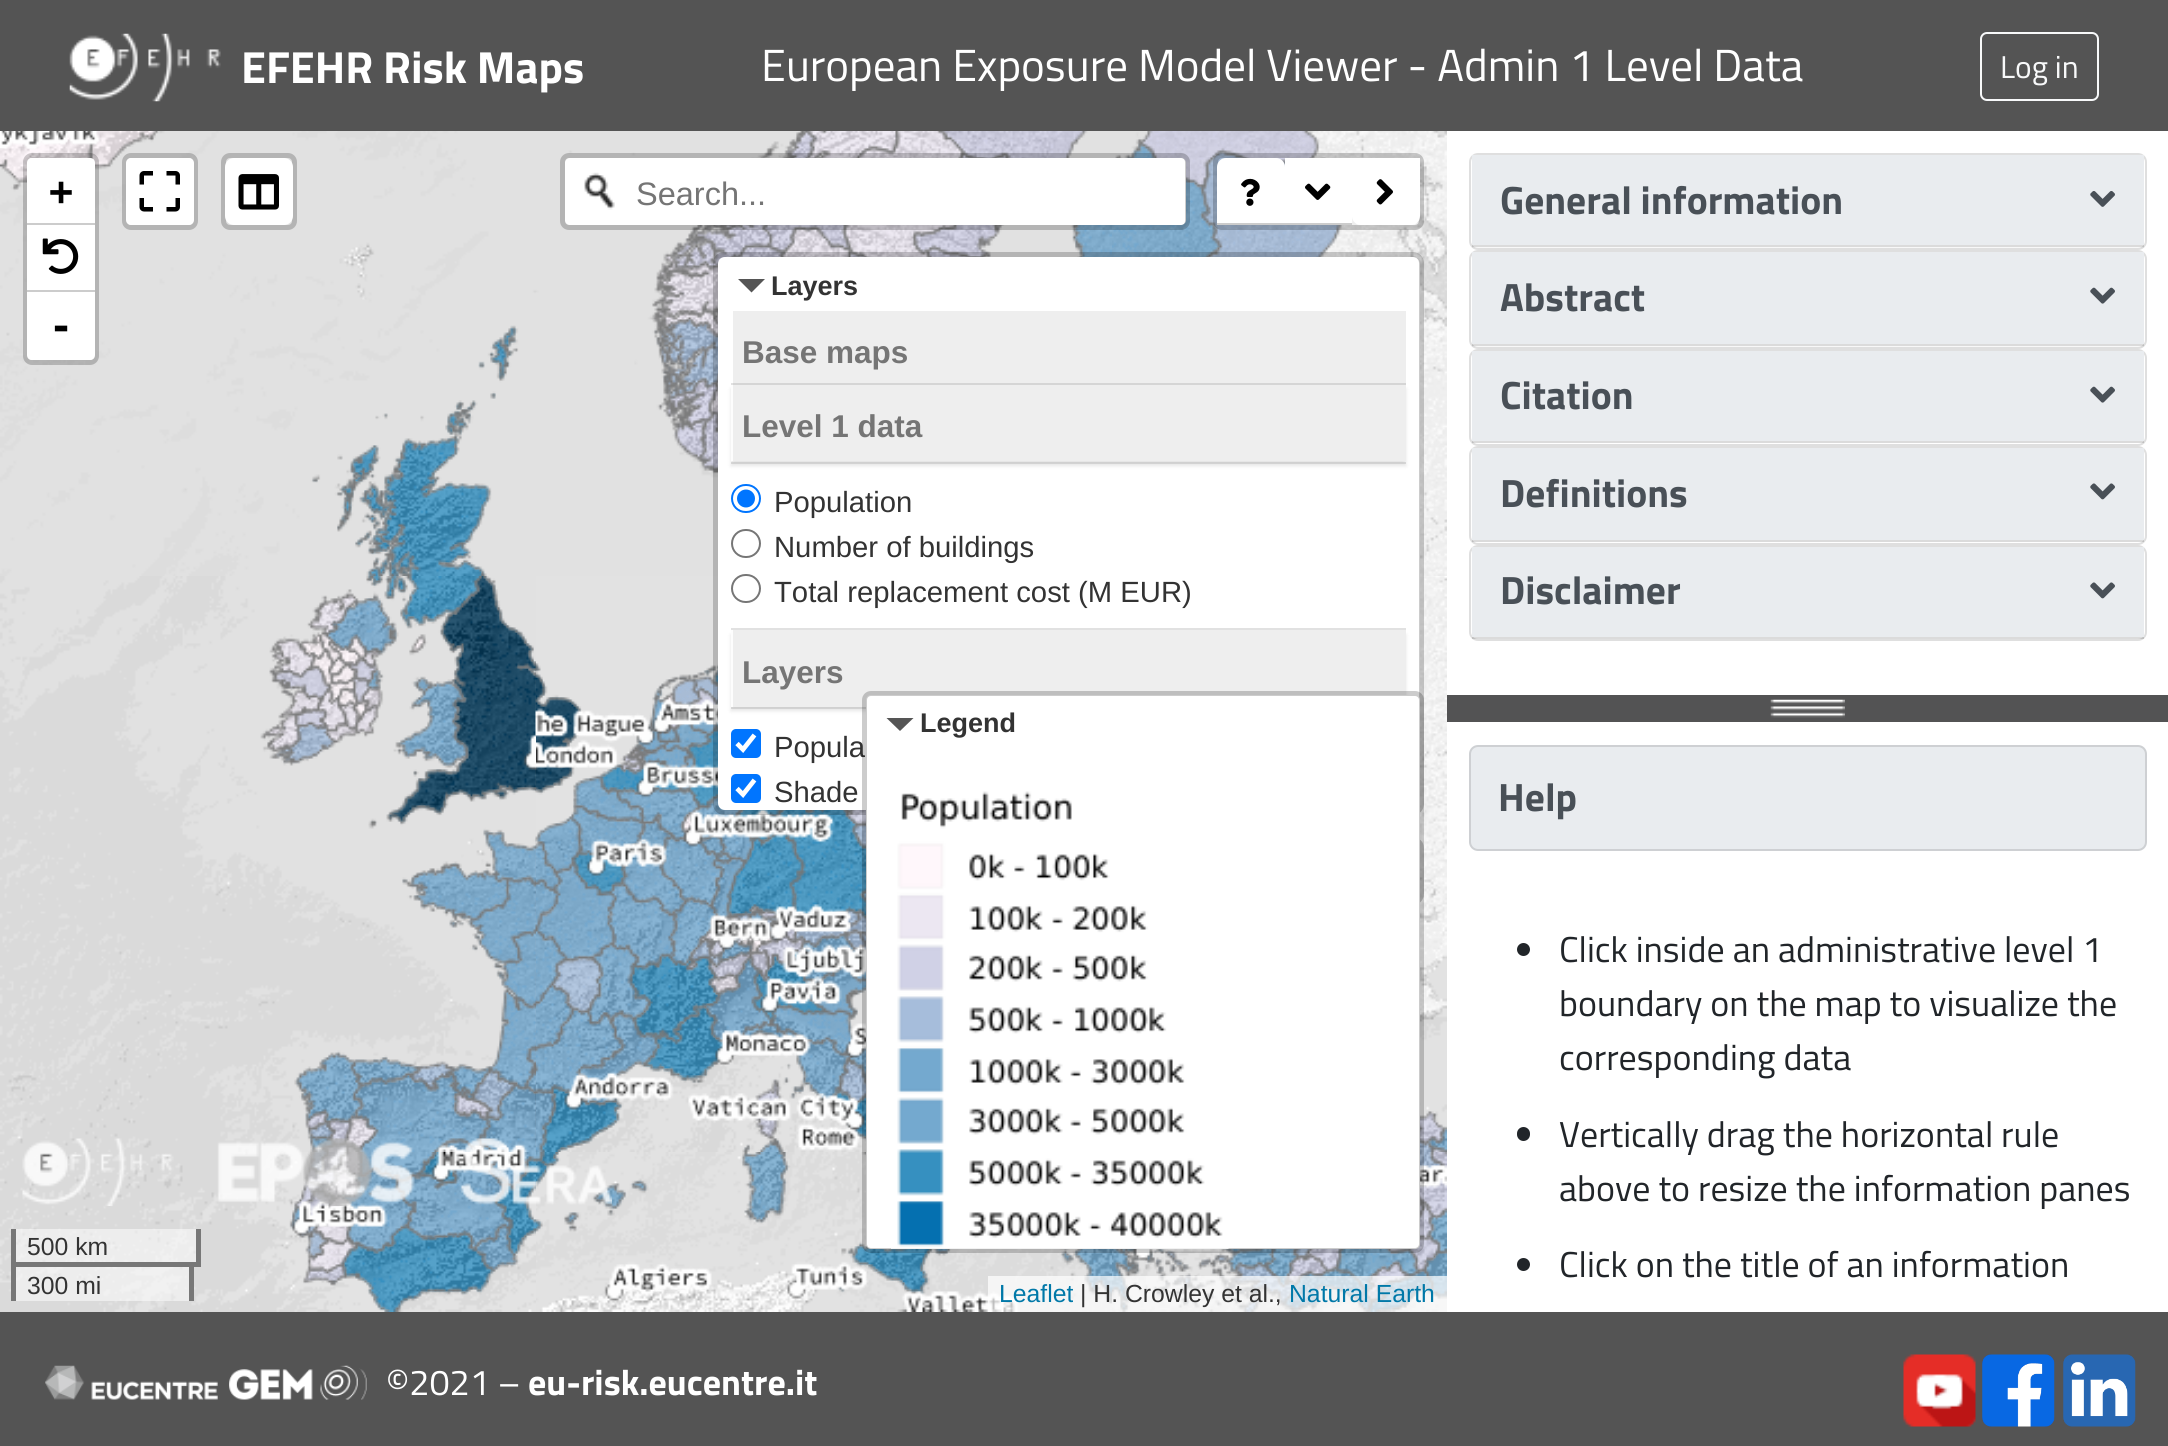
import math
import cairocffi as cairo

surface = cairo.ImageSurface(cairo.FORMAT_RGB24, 2168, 1446)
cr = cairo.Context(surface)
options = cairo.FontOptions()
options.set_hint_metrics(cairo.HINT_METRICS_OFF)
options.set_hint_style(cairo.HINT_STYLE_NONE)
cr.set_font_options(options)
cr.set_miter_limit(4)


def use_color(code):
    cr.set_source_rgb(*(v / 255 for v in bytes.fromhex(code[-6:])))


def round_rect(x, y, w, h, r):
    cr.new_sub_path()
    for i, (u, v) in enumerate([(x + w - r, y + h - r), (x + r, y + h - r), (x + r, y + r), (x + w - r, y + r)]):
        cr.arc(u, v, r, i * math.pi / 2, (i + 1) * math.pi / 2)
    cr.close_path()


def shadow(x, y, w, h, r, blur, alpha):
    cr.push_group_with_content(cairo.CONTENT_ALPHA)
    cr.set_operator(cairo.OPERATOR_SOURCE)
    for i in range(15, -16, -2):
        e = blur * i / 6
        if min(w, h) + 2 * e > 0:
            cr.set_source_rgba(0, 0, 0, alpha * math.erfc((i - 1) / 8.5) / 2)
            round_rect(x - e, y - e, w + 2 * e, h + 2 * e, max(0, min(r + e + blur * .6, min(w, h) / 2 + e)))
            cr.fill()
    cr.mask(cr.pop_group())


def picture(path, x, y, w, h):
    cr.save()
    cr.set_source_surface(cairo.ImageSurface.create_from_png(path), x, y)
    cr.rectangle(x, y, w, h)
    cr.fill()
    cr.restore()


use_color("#545454")
cr.paint()
picture("img1.png", 69, 33, 152, 69)
cr.select_font_face("Titillium Web", cairo.FONT_SLANT_NORMAL, cairo.FONT_WEIGHT_BOLD)
cr.set_font_size(45)
use_color("#ffffff")
cr.move_to(241, 83)
cr.show_text("EFEHR Risk Maps")
cr.select_font_face("Titillium Web")
cr.move_to(761, 81)
cr.show_text("European Exposure Model Viewer - Admin 1 Level Data")
round_rect(1981, 33, 117, 67, 6)
use_color("#f8f9fa")
cr.stroke()
cr.set_font_size(31.5)
cr.move_to(2000, 78)
cr.show_text("Log in")
use_color("#ffffff")
cr.rectangle(1420, 576, 27, 1)
cr.fill()
picture("img2.png", 0, 131, 536, 445)
picture("img3.png", 536, 131, 576, 445)
picture("img4.png", 1112, 131, 335, 445)
picture("img5.png", 0, 576, 536, 576)
picture("img6.png", 536, 576, 330, 576)
picture("img7.png", 1420, 577, 27, 575)
picture("img8.png", 0, 1152, 536, 160)
picture("img9.png", 536, 1152, 576, 160)
picture("img10.png", 1112, 1152, 335, 160)
picture("img11.png", 0, 131, 517, 445)
picture("img12.png", 654, 131, 458, 342)
picture("img13.png", 1112, 131, 230, 126)
picture("img15.png", 535, 663, 331, 489)
picture("img14.png", 264, 576, 272, 576)
picture("img16.png", 1420, 1111, 27, 41)
picture("img17.png", 290, 1152, 246, 160)
picture("img18.png", 536, 1152, 576, 151)
picture("img19.png", 1112, 1152, 335, 160)
picture("img20.png", 0, 131, 516, 445)
picture("img21.png", 653, 131, 459, 345)
picture("img22.png", 1112, 131, 335, 445)
picture("img24.png", 535, 668, 331, 484)
picture("img23.png", 267, 576, 269, 576)
picture("img25.png", 1420, 576, 27, 576)
picture("img26.png", 292, 1152, 244, 160)
picture("img27.png", 536, 1152, 576, 160)
picture("img28.png", 1112, 1152, 335, 160)
picture("img29.png", 0, 131, 536, 445)
picture("img30.png", 536, 131, 552, 343)
picture("img31.png", 1115, 131, 227, 126)
picture("img33.png", 535, 663, 331, 489)
picture("img32.png", 260, 576, 276, 576)
picture("img34.png", 1420, 1111, 27, 41)
picture("img35.png", 289, 1152, 247, 160)
picture("img36.png", 536, 1152, 576, 160)
picture("img37.png", 1112, 1152, 335, 160)
picture("img38.png", 0, 131, 100, 19)
picture("img40.png", 535, 699, 331, 452)
picture("img39.png", 436, 734, 100, 418)
picture("img41.png", 292, 1152, 235, 84)
picture("img42.png", 1133, 1165, 314, 96)
picture("img43.png", 604, 1261, 416, 51)
round_rect(25.5, 155.5, 71, 207, 6.5)
cr.set_source_rgba(0, 0, 0, 0.2)
cr.set_line_width(5)
cr.stroke()
use_color("#ffffff")
cr.new_path()
cr.move_to(32, 158)
cr.line_to(90, 158)
cr.curve_to(93, 158, 95, 160, 95, 163)
cr.line_to(95, 225)
cr.line_to(27, 225)
cr.line_to(27, 163)
cr.curve_to(27, 160, 29, 158, 32, 158)
cr.close_path()
cr.fill()
use_color("#cccccc")
cr.rectangle(27, 223, 68, 2)
cr.fill()
cr.select_font_face("DejaVu Sans Mono", cairo.FONT_SLANT_NORMAL, cairo.FONT_WEIGHT_BOLD)
cr.set_font_size(40)
use_color("#000000")
cr.move_to(49, 205)
cr.show_text("+")
use_color("#ffffff")
cr.rectangle(27, 225, 68, 68)
cr.fill()
use_color("#cccccc")
cr.rectangle(27, 290, 68, 2)
cr.fill()
picture("img44.png", 42, 238, 37, 36)
use_color("#ffffff")
cr.new_path()
cr.move_to(27, 293)
cr.line_to(95, 293)
cr.line_to(95, 355)
cr.curve_to(95, 358, 93, 360, 90, 360)
cr.line_to(32, 360)
cr.curve_to(29, 360, 27, 358, 27, 355)
cr.close_path()
cr.fill()
use_color("#000000")
cr.move_to(49, 340)
cr.show_text("-")
round_rect(124.5, 155.5, 71, 72, 6.5)
cr.set_source_rgba(0, 0, 0, 0.2)
cr.stroke()
use_color("#ffffff")
round_rect(126, 158, 68, 67, 5)
cr.fill()
picture("img45.png", 139, 171, 41, 41)
round_rect(223.5, 155.5, 71, 72, 6.5)
cr.set_source_rgba(0, 0, 0, 0.2)
cr.stroke()
use_color("#ffffff")
round_rect(225, 158, 68, 67, 9)
cr.fill()
picture("img46.png", 238, 174, 41, 36)
round_rect(565, 158, 621, 67, 5)
cr.fill()
round_rect(562.5, 155.5, 625, 72, 6.5)
cr.set_source_rgba(0, 0, 0, 0.2)
cr.stroke()
picture("img47.png", 584, 172, 31, 38)
cr.select_font_face("Liberation Sans")
cr.set_font_size(32.5)
use_color("#757575")
cr.move_to(636, 205)
cr.show_text("Search...")
round_rect(1215.5, 155.5, 206, 72, 6.5)
cr.set_source_rgba(0, 0, 0, 0.2)
cr.stroke()
use_color("#ffffff")
cr.new_path()
cr.move_to(1226, 158)
cr.line_to(1276, 158)
cr.curve_to(1281, 158, 1285, 162, 1285, 167)
cr.line_to(1285, 225)
cr.line_to(1217, 225)
cr.line_to(1217, 167)
cr.curve_to(1217, 162, 1221, 158, 1226, 158)
cr.close_path()
cr.fill()
use_color("#cccccc")
cr.rectangle(1217, 223, 135, 2)
cr.fill()
picture("img48.png", 1241, 178, 19, 28)
use_color("#ffffff")
cr.rectangle(1285, 158, 67, 65)
cr.fill()
picture("img49.png", 1305, 183, 26, 17)
cr.new_path()
cr.move_to(1352, 158)
cr.line_to(1420, 158)
cr.line_to(1420, 216)
cr.curve_to(1420, 221, 1416, 225, 1411, 225)
cr.line_to(1361, 225)
cr.curve_to(1356, 225, 1352, 221, 1352, 216)
cr.close_path()
cr.fill()
picture("img50.png", 1376, 179, 17, 26)
round_rect(718, 257, 702, 553, 7)
cr.fill()
round_rect(715.5, 254.5, 706, 558, 8.5)
cr.set_source_rgba(0, 0, 0, 0.2)
cr.stroke()
use_color("#555555")
cr.new_path()
cr.move_to(738, 279)
cr.line_to(765, 279)
cr.line_to(751.5, 292.5)
cr.close_path()
cr.fill()
cr.select_font_face("Liberation Sans", cairo.FONT_SLANT_NORMAL, cairo.FONT_WEIGHT_BOLD)
cr.set_font_size(27)
use_color("#333333")
cr.move_to(771, 295)
cr.show_text("Layers")
use_color("#eeeeee")
cr.rectangle(733, 311, 673, 74)
cr.fill()
cr.set_font_size(31.5)
use_color("#757575")
cr.move_to(742, 363)
cr.show_text("Base maps")
use_color("#000000")
shadow(731, 389, 675, 77, 0, 2, 0.1)
cr.save()
cr.rectangle(731, 311, 675, 519)
cr.clip()
cr.rectangle(730, 384, 678, 79)
cr.set_source_rgba(0.608, 0.608, 0.608, 0.3)
cr.set_line_width(2)
cr.stroke()
cr.restore()
use_color("#eeeeee")
cr.rectangle(733, 385, 673, 76)
cr.fill()
use_color("#fdfdfd")
cr.rectangle(731, 385, 2, 76)
cr.fill()
use_color("#757575")
cr.move_to(742, 437)
cr.show_text("Level 1 data")
round_rect(732, 485, 28, 27, 13.5)
use_color("#0075ff")
cr.set_line_width(2)
cr.stroke()
cr.arc(746, 498.5, 9, 0, 2 * math.pi)
cr.fill()
cr.select_font_face("Liberation Sans")
cr.set_font_size(29.25)
use_color("#333333")
cr.move_to(774, 512)
cr.show_text("Population")
round_rect(732, 530, 28, 27, 13.5)
use_color("#767676")
cr.stroke()
use_color("#333333")
cr.move_to(774, 557)
cr.show_text("Number of buildings")
round_rect(732, 575, 28, 27, 13.5)
use_color("#767676")
cr.stroke()
use_color("#333333")
cr.move_to(774, 602)
cr.show_text("Total replacement cost (M EUR)")
use_color("#000000")
shadow(731, 635, 675, 76, 0, 2, 0.1)
cr.save()
cr.rectangle(731, 311, 675, 519)
cr.clip()
cr.rectangle(730, 629, 678, 79)
cr.set_source_rgba(0.608, 0.608, 0.608, 0.3)
cr.stroke()
cr.restore()
use_color("#eeeeee")
cr.rectangle(733, 630, 673, 77)
cr.fill()
use_color("#fdfdfd")
cr.rectangle(731, 630, 2, 77)
cr.fill()
cr.select_font_face("Liberation Sans", cairo.FONT_SLANT_NORMAL, cairo.FONT_WEIGHT_BOLD)
cr.set_font_size(31.5)
use_color("#757575")
cr.move_to(742, 683)
cr.show_text("Layers")
use_color("#0075ff")
round_rect(731, 729, 30, 29, 5)
cr.fill()
cr.new_path()
cr.move_to(737, 743.5)
cr.line_to(743, 749.5)
cr.line_to(754.5, 735)
use_color("#ffffff")
cr.set_line_width(4.7)
cr.stroke()
cr.select_font_face("Liberation Sans")
cr.set_font_size(29.25)
use_color("#333333")
cr.move_to(774, 757)
cr.show_text("Popula")
use_color("#0075ff")
round_rect(731, 774, 30, 29, 5)
cr.fill()
cr.new_path()
cr.move_to(737, 788.5)
cr.line_to(743, 794.5)
cr.line_to(754.5, 780)
use_color("#ffffff")
cr.stroke()
use_color("#333333")
cr.move_to(774, 802)
cr.show_text("Shade")
round_rect(1251.5, 839.5, 170, 63, 8.5)
cr.set_source_rgba(0, 0, 0, 0.2)
cr.set_line_width(5)
cr.stroke()
picture("img51.png", 22, 1138, 590, 68)
cr.set_source_rgba(1, 1, 1, 0.5)
cr.rectangle(16, 1229, 180, 33)
cr.fill()
use_color("#777777")
cr.rectangle(196, 1229, 5, 38)
cr.fill()
cr.rectangle(194, 1262, 6, 5)
cr.fill()
cr.rectangle(11, 1229, 5, 38)
cr.fill()
cr.set_font_size(24.75)
use_color("#333333")
cr.move_to(27, 1255)
cr.show_text("500 km")
cr.set_source_rgba(1, 1, 1, 0.5)
cr.rectangle(16, 1267, 173, 34)
cr.fill()
use_color("#777777")
cr.rectangle(11, 1262, 183, 5)
cr.fill()
cr.rectangle(189, 1262, 5, 39)
cr.fill()
cr.rectangle(11, 1262, 5, 39)
cr.fill()
use_color("#333333")
cr.move_to(27, 1294)
cr.show_text("300 mi")
use_color("#ffffff")
round_rect(866, 695, 554, 554, 5)
cr.fill()
round_rect(864.5, 693.5, 557, 557, 6.5)
cr.set_source_rgba(0, 0, 0, 0.2)
cr.stroke()
use_color("#555555")
cr.new_path()
cr.move_to(886.5, 718)
cr.line_to(913.5, 718)
cr.line_to(900, 731)
cr.close_path()
cr.fill()
cr.select_font_face("Liberation Sans", cairo.FONT_SLANT_NORMAL, cairo.FONT_WEIGHT_BOLD)
cr.set_font_size(27)
use_color("#333333")
cr.move_to(920, 732)
cr.show_text("Legend")
picture("img52.png", 891, 791, 338, 458)
cr.set_source_rgba(1, 1, 1, 0.7)
cr.rectangle(988, 1276, 459, 36)
cr.fill()
cr.select_font_face("Liberation Sans")
cr.set_font_size(24.75)
use_color("#0078a8")
cr.move_to(999, 1302)
cr.show_text("Leaflet")
use_color("#333333")
cr.move_to(1080, 1302)
cr.show_text("| H. Crowley et al.,")
use_color("#0078a8")
cr.move_to(1289, 1302)
cr.show_text("Natural Earth")
use_color("#ffffff")
cr.rectangle(1447, 131, 721, 1181)
cr.fill()
round_rect(1470, 154, 676, 95, 8)
use_color("#dfdfdf")
cr.set_line_width(2)
cr.stroke()
cr.set_source_rgba(0, 0, 0, 0.03)
cr.rectangle(1472, 245, 672, 3)
cr.fill()
cr.set_source_rgba(0, 0, 0, 0.12)
cr.rectangle(1472, 245, 672, 2)
cr.fill()
use_color("#e9ecef")
cr.rectangle(1472, 155, 672, 90)
cr.fill()
cr.select_font_face("Titillium Web", cairo.FONT_SLANT_NORMAL, cairo.FONT_WEIGHT_BOLD)
cr.set_font_size(39.5)
use_color("#495057")
cr.move_to(1500, 214)
cr.show_text("General information")
picture("img53.png", 2090, 191, 25, 16)
round_rect(1470, 251, 676, 97, 8)
use_color("#dfdfdf")
cr.stroke()
cr.set_source_rgba(0, 0, 0, 0.03)
cr.rectangle(1472, 344, 672, 3)
cr.fill()
cr.set_source_rgba(0, 0, 0, 0.12)
cr.rectangle(1472, 344, 672, 2)
cr.fill()
use_color("#e9ecef")
cr.rectangle(1472, 252, 672, 92)
cr.fill()
use_color("#495057")
cr.move_to(1500, 311)
cr.show_text("Abstract")
picture("img54.png", 2090, 287, 25, 17)
round_rect(1470, 350, 676, 95, 8)
use_color("#dfdfdf")
cr.stroke()
cr.set_source_rgba(0, 0, 0, 0.03)
cr.rectangle(1472, 441, 672, 2)
cr.fill()
cr.set_source_rgba(0, 0, 0, 0.12)
cr.rectangle(1472, 441, 672, 2)
cr.fill()
use_color("#e9ecef")
cr.rectangle(1472, 351, 672, 90)
cr.fill()
use_color("#495057")
cr.move_to(1500, 409)
cr.show_text("Citation")
picture("img54.png", 2090, 386, 25, 17)
round_rect(1470, 447, 676, 97, 8)
use_color("#dfdfdf")
cr.stroke()
cr.set_source_rgba(0, 0, 0, 0.03)
cr.rectangle(1472, 540, 672, 2)
cr.fill()
cr.set_source_rgba(0, 0, 0, 0.12)
cr.rectangle(1472, 540, 672, 2)
cr.fill()
use_color("#e9ecef")
cr.rectangle(1472, 448, 672, 92)
cr.fill()
use_color("#495057")
cr.move_to(1500, 507)
cr.show_text("Definitions")
picture("img55.png", 2090, 483, 25, 17)
round_rect(1470, 546, 676, 94, 8)
use_color("#dfdfdf")
cr.stroke()
cr.set_source_rgba(0, 0, 0, 0.03)
cr.rectangle(1472, 637, 672, 2)
cr.fill()
cr.set_source_rgba(0, 0, 0, 0.12)
cr.rectangle(1472, 637, 672, 2)
cr.fill()
use_color("#e9ecef")
cr.rectangle(1472, 547, 672, 90)
cr.fill()
use_color("#495057")
cr.move_to(1500, 604)
cr.show_text("Disclaimer")
picture("img55.png", 2090, 582, 25, 17)
use_color("#535354")
cr.rectangle(1447, 695, 721, 27)
cr.fill()
picture("img56.png", 1770, 699, 75, 19)
use_color("#e9ecef")
round_rect(1469, 745, 678, 106, 9)
cr.fill()
round_rect(1470, 746, 676, 104, 8)
cr.set_source_rgba(0, 0, 0, 0.12)
cr.stroke()
use_color("#495057")
cr.move_to(1498, 811)
cr.show_text("Help")
use_color("#212529")
cr.new_path()
cr.arc(1523.5, 949.5, 6.5, 0, 2 * math.pi)
cr.fill()
cr.select_font_face("Titillium Web")
cr.set_font_size(36)
cr.move_to(1559, 962)
cr.show_text("Click inside an administrative level 1")
cr.move_to(1559, 1016)
cr.show_text("boundary on the map to visualize the")
cr.move_to(1559, 1070)
cr.show_text("corresponding data")
round_rect(1517, 1127, 13, 14, 6.5)
cr.fill()
cr.move_to(1559, 1147)
cr.show_text("Vertically drag the horizontal rule")
cr.move_to(1559, 1201)
cr.show_text("above to resize the information panes")
cr.new_path()
cr.arc(1523.5, 1264.5, 6.5, 0, 2 * math.pi)
cr.fill()
cr.move_to(1559, 1277)
cr.show_text("Click on the title of an information")
picture("img57.png", 45, 1365, 322, 35)
use_color("#ffffff")
cr.move_to(386, 1395)
cr.show_text("©2021 –")
cr.select_font_face("Titillium Web", cairo.FONT_SLANT_NORMAL, cairo.FONT_WEIGHT_BOLD)
cr.move_to(528, 1395)
cr.show_text("eu-risk.eucentre.it")
picture("img58.png", 1903, 1354, 73, 73)
picture("img59.png", 1982, 1354, 73, 73)
picture("img60.png", 2063, 1354, 73, 73)
surface.write_to_png("result.png")
